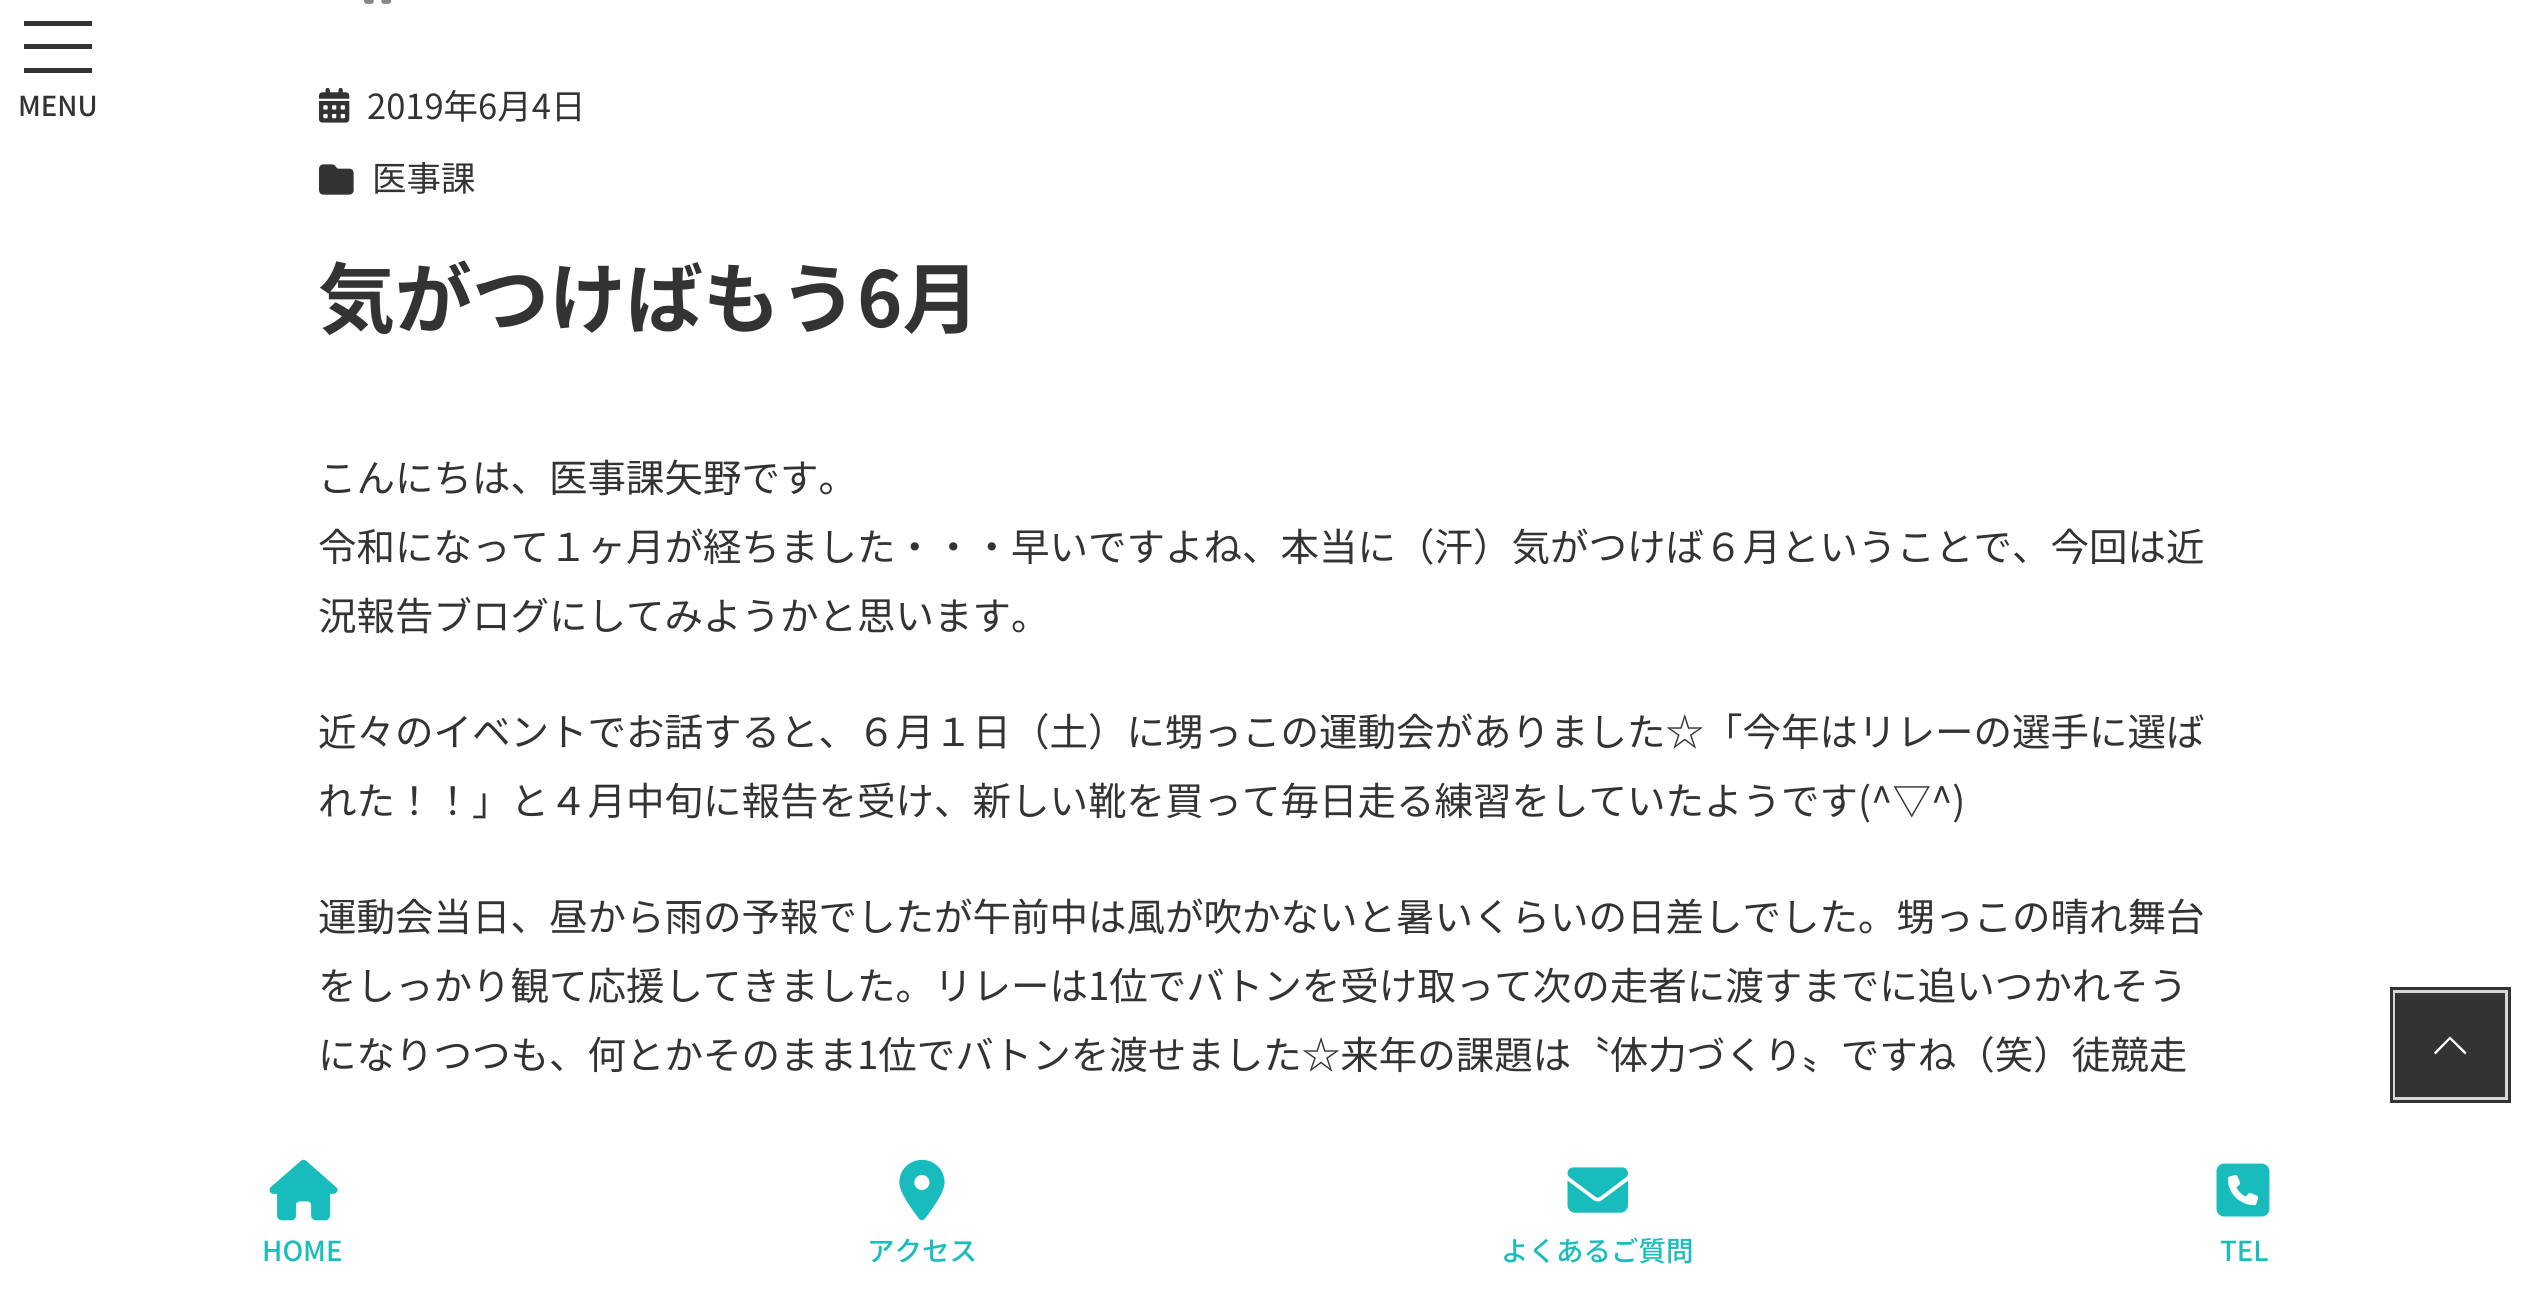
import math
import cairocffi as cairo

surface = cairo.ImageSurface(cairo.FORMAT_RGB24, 2532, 1293)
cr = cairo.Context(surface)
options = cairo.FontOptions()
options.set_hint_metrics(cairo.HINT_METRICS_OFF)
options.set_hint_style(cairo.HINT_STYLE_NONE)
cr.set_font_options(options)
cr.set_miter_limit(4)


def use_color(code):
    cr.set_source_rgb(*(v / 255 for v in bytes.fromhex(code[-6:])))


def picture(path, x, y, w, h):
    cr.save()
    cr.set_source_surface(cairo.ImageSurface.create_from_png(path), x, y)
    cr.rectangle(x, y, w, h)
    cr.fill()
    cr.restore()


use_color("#ffffff")
cr.paint()
use_color("#333333")
cr.rectangle(24, 21, 68, 5)
cr.fill()
cr.rectangle(24, 44, 68, 5)
cr.fill()
cr.rectangle(24, 68, 68, 5)
cr.fill()
cr.select_font_face("Noto Sans JP Medium")
cr.set_font_size(27.5)
cr.move_to(18, 116)
cr.show_text("MENU")
picture("img1.png", 364, 0, 28, 4)
picture("img2.png", 319, 87, 31, 36)
cr.select_font_face("Noto Sans JP")
cr.set_font_size(34.5)
cr.move_to(367, 119)
cr.show_text("2019年6月4日")
picture("img3.png", 319, 164, 35, 31)
cr.move_to(372, 191)
cr.show_text("医事課")
cr.select_font_face("Noto Sans JP", cairo.FONT_SLANT_NORMAL, cairo.FONT_WEIGHT_BOLD)
cr.set_font_size(77)
cr.move_to(318, 327)
cr.show_text("気がつけばもう6月")
cr.select_font_face("Noto Sans JP")
cr.set_font_size(38.5)
cr.move_to(318, 492)
cr.show_text("こんにちは、医事課矢野です。")
cr.move_to(318, 561)
cr.show_text("令和になって１ヶ月が経ちました・・・早いですよね、本当に（汗）気がつけば６月ということで、今回は近")
cr.move_to(318, 630)
cr.show_text("況報告ブログにしてみようかと思います。")
cr.move_to(318, 746)
cr.show_text("近々のイベントでお話すると、６月１日（土）に甥っこの運動会がありました☆「今年はリレーの選手に選ば")
cr.move_to(318, 815)
cr.show_text("れた！！」と４月中旬に報告を受け、新しい靴を買って毎日走る練習をしていたようです(^▽^)")
cr.move_to(318, 931)
cr.show_text("運動会当日、昼から雨の予報でしたが午前中は風が吹かないと暑いくらいの日差しでした。甥っこの晴れ舞台")
cr.move_to(318, 1000)
cr.show_text("をしっかり観て応援してきました。リレーは1位でバトンを受け取って次の走者に渡すまでに追いつかれそう")
cr.move_to(318, 1069)
cr.show_text("になりつつも、何とかそのまま1位でバトンを渡せました☆来年の課題は〝体力づくり〟ですね（笑）徒競走")
cr.rectangle(2393, 990, 115, 110)
cr.set_line_width(6)
cr.stroke()
cr.rectangle(2394.5, 991.5, 112, 107)
use_color("#d6d6d6")
cr.set_line_width(3)
cr.stroke()
cr.set_source_rgba(0, 0, 0, 0.8)
cr.rectangle(2395, 993, 110, 104)
cr.fill()
use_color("#ffffff")
cr.new_path()
cr.move_to(2466.5, 1052.5)
cr.line_to(2465, 1054.5)
cr.line_to(2450, 1039.5)
cr.line_to(2435.5, 1054.5)
cr.line_to(2434, 1052.5)
cr.line_to(2450, 1036.5)
cr.close_path()
cr.fill()
picture("img4.png", 269, 1159, 69, 62)
cr.select_font_face("Noto Sans JP Medium")
cr.set_font_size(27.5)
use_color("#1abcbc")
cr.move_to(262, 1261)
cr.show_text("HOME")
picture("img5.png", 899, 1159, 46, 62)
cr.move_to(867, 1261)
cr.show_text("アクセス")
picture("img6.png", 1567, 1167, 61, 46)
cr.move_to(1501, 1261)
cr.show_text("よくあるご質問")
picture("img7.png", 2216, 1163, 54, 54)
cr.move_to(2220, 1261)
cr.show_text("TEL")
surface.write_to_png("result.png")
